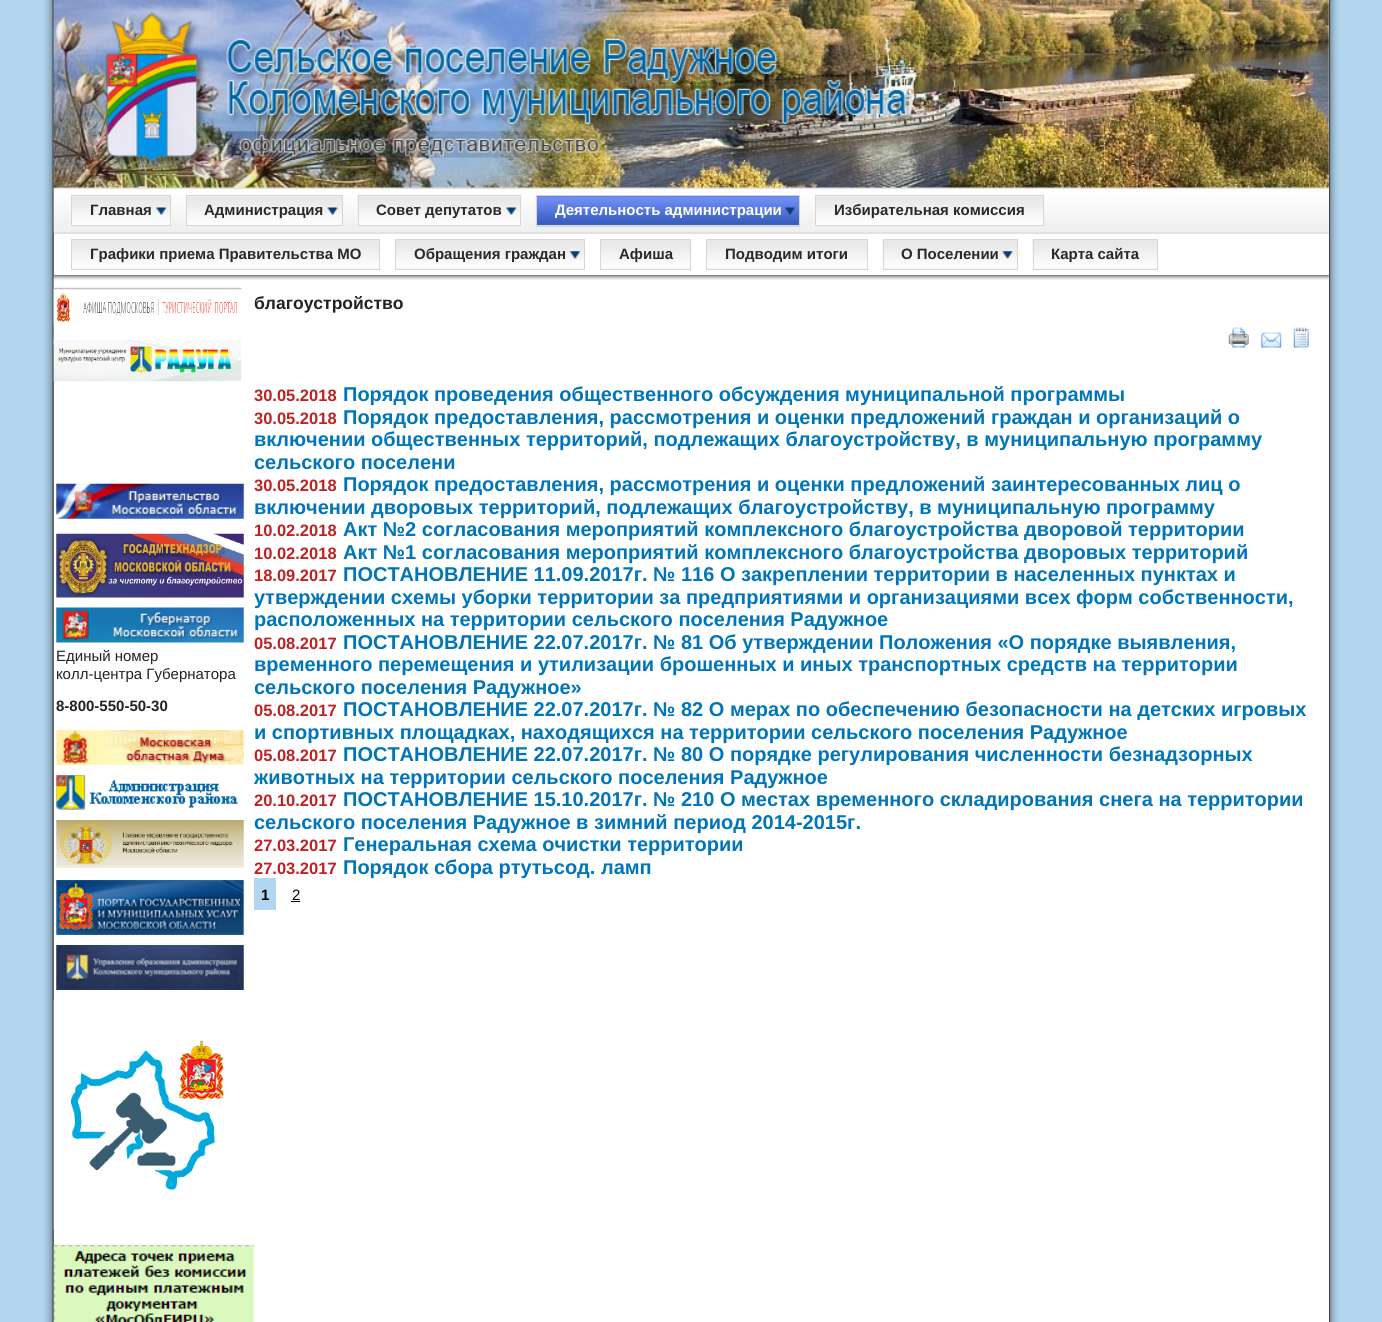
import math
import cairocffi as cairo

surface = cairo.ImageSurface(cairo.FORMAT_RGB24, 1382, 1322)
cr = cairo.Context(surface)
options = cairo.FontOptions()
options.set_hint_metrics(cairo.HINT_METRICS_OFF)
options.set_hint_style(cairo.HINT_STYLE_NONE)
cr.set_font_options(options)
cr.set_miter_limit(4)


def use_color(code):
    cr.set_source_rgb(*(v / 255 for v in bytes.fromhex(code[-6:])))


def picture(path, x, y, w, h):
    cr.save()
    cr.set_source_surface(cairo.ImageSurface.create_from_png(path), x, y)
    cr.rectangle(x, y, w, h)
    cr.fill()
    cr.restore()


use_color("#b2d6f0")
cr.paint()
picture("img1.png", 44, 0, 10, 1322)
picture("img2.png", 1329, 0, 10, 1322)
use_color("#ffffff")
cr.rectangle(54, 188, 1275, 1134)
cr.fill()
picture("img5.png", 53, 187, 1276, 47)
use_color("#e7e7e7")
cr.rectangle(54, 0, 1275, 188)
cr.fill()
picture("img3.png", 53, 0, 1276, 188)
picture("img4.png", 106, 12, 806, 160)
picture("img6.png", 72, 196, 100, 30)
cr.rectangle(71.5, 195.5, 99, 30)
use_color("#d6d6d6")
cr.set_line_width(1)
cr.stroke()
cr.select_font_face("Liberation Sans", cairo.FONT_SLANT_NORMAL, cairo.FONT_WEIGHT_BOLD)
cr.set_font_size(15)
use_color("#292929")
cr.move_to(90, 215)
cr.show_text("Главная")
picture("img7.png", 156, 207, 11, 8)
picture("img8.png", 187, 196, 155, 29)
cr.rectangle(186.5, 195.5, 156, 30)
use_color("#d6d6d6")
cr.stroke()
use_color("#292929")
cr.move_to(204, 215)
cr.show_text("Администрация")
picture("img9.png", 327, 207, 11, 8)
picture("img10.png", 357, 196, 165, 30)
cr.rectangle(358.5, 195.5, 162, 30)
use_color("#d6d6d6")
cr.stroke()
use_color("#292929")
cr.move_to(376, 215)
cr.show_text("Совет депутатов")
picture("img7.png", 506, 207, 11, 8)
picture("img11.png", 536, 196, 264, 31)
cr.rectangle(536.5, 195.5, 263, 30)
use_color("#d6d6d6")
cr.stroke()
use_color("#ffffff")
cr.move_to(555, 215)
cr.show_text("Деятельность администрации")
picture("img12.png", 785, 207, 10, 8)
picture("img13.png", 816, 196, 227, 29)
cr.rectangle(815.5, 195.5, 228, 30)
use_color("#d6d6d6")
cr.stroke()
use_color("#292929")
cr.move_to(834, 215)
cr.show_text("Избирательная комиссия")
picture("img14.png", 72, 240, 307, 29)
cr.rectangle(71.5, 239.5, 308, 30)
use_color("#d6d6d6")
cr.stroke()
use_color("#292929")
cr.move_to(90, 259)
cr.show_text("Графики приема Правительства МО")
picture("img15.png", 396, 240, 188, 29)
cr.rectangle(395.5, 239.5, 189, 30)
use_color("#d6d6d6")
cr.stroke()
use_color("#292929")
cr.move_to(414, 259)
cr.show_text("Обращения граждан")
picture("img16.png", 570, 251, 10, 8)
picture("img17.png", 601, 240, 91, 30)
cr.rectangle(600.5, 239.5, 90, 30)
use_color("#d6d6d6")
cr.stroke()
use_color("#292929")
cr.move_to(619, 259)
cr.show_text("Афиша")
picture("img18.png", 707, 240, 160, 29)
cr.rectangle(706.5, 239.5, 161, 30)
use_color("#d6d6d6")
cr.stroke()
use_color("#292929")
cr.move_to(725, 259)
cr.show_text("Подводим итоги")
picture("img19.png", 882, 240, 135, 30)
cr.rectangle(883.5, 239.5, 134, 30)
use_color("#d6d6d6")
cr.stroke()
use_color("#292929")
cr.move_to(901, 259)
cr.show_text("О Поселении")
picture("img20.png", 1002, 251, 11, 8)
picture("img21.png", 1032, 240, 125, 30)
cr.rectangle(1033.5, 239.5, 124, 30)
use_color("#d6d6d6")
cr.stroke()
use_color("#292929")
cr.move_to(1051, 259)
cr.show_text("Карта сайта")
picture("img22.png", 53, 275, 1276, 70)
picture("img23.png", 53, 287, 189, 38)
picture("img24.png", 53, 340, 189, 42)
picture("img25.png", 56, 483, 188, 36)
picture("img26.png", 56, 533, 188, 65)
picture("img27.png", 56, 607, 188, 36)
cr.select_font_face("Liberation Sans")
use_color("#222222")
cr.move_to(56, 661)
cr.show_text("Единый номер")
cr.move_to(56, 679)
cr.show_text("колл-центра Губернатора")
cr.select_font_face("Liberation Sans", cairo.FONT_SLANT_NORMAL, cairo.FONT_WEIGHT_BOLD)
cr.move_to(56, 711)
cr.show_text("8-800-550-50-30")
picture("img28.png", 56, 730, 188, 35)
picture("img29.png", 56, 775, 182, 35)
picture("img30.png", 56, 820, 188, 50)
picture("img31.png", 56, 880, 188, 55)
picture("img32.png", 56, 945, 188, 45)
picture("img33.png", 53, 1000, 171, 230)
picture("img34.png", 53, 1245, 201, 77)
cr.set_font_size(17.5)
cr.move_to(254, 309)
cr.show_text("благоустройство")
picture("img35.png", 1228, 327, 21, 21)
picture("img36.png", 1261, 332, 21, 16)
picture("img37.png", 1293, 327, 16, 21)
cr.set_font_size(16.5)
use_color("#be2222")
cr.move_to(254, 401)
cr.show_text("30.05.2018")
cr.set_font_size(20)
use_color("#0075ba")
cr.move_to(343, 401)
cr.show_text("Порядок проведения общественного обсуждения муниципальной программы")
cr.set_font_size(16.5)
use_color("#be2222")
cr.move_to(254, 424)
cr.show_text("30.05.2018")
cr.set_font_size(20)
use_color("#0075ba")
cr.move_to(343, 424)
cr.show_text("Порядок предоставления, рассмотрения и оценки предложений граждан и организаций о")
cr.move_to(254, 446)
cr.show_text("включении общественных территорий, подлежащих благоустройству, в муниципальную программу")
cr.move_to(254, 469)
cr.show_text("сельского поселени")
cr.set_font_size(16.5)
use_color("#be2222")
cr.move_to(254, 491)
cr.show_text("30.05.2018")
cr.set_font_size(20)
use_color("#0075ba")
cr.move_to(343, 491)
cr.show_text("Порядок предоставления, рассмотрения и оценки предложений заинтересованных лиц о")
cr.move_to(254, 514)
cr.show_text("включении дворовых территорий, подлежащих благоустройству, в муниципальную программу")
cr.set_font_size(16.5)
use_color("#be2222")
cr.move_to(254, 536)
cr.show_text("10.02.2018")
cr.set_font_size(20)
use_color("#0075ba")
cr.move_to(343, 536)
cr.show_text("Акт №2 согласования мероприятий комплексного благоустройства дворовой территории")
cr.set_font_size(16.5)
use_color("#be2222")
cr.move_to(254, 559)
cr.show_text("10.02.2018")
cr.set_font_size(20)
use_color("#0075ba")
cr.move_to(343, 559)
cr.show_text("Акт №1 согласования мероприятий комплексного благоустройства дворовых территорий")
cr.set_font_size(16.5)
use_color("#be2222")
cr.move_to(254, 581)
cr.show_text("18.09.2017")
cr.set_font_size(20)
use_color("#0075ba")
cr.move_to(343, 581)
cr.show_text("ПОСТАНОВЛЕНИЕ 11.09.2017г. № 116 О закреплении территории в населенных пунктах и")
cr.move_to(254, 604)
cr.show_text("утверждении схемы уборки территории за предприятиями и организациями всех форм собственности,")
cr.move_to(254, 626)
cr.show_text("расположенных на территории сельского поселения Радужное")
cr.set_font_size(16.5)
use_color("#be2222")
cr.move_to(254, 649)
cr.show_text("05.08.2017")
cr.set_font_size(20)
use_color("#0075ba")
cr.move_to(343, 649)
cr.show_text("ПОСТАНОВЛЕНИЕ 22.07.2017г. № 81 Об утверждении Положения «О порядке выявления,")
cr.move_to(254, 671)
cr.show_text("временного перемещения и утилизации брошенных и иных транспортных средств на территории")
cr.move_to(254, 694)
cr.show_text("сельского поселения Радужное»")
cr.set_font_size(16.5)
use_color("#be2222")
cr.move_to(254, 716)
cr.show_text("05.08.2017")
cr.set_font_size(20)
use_color("#0075ba")
cr.move_to(343, 716)
cr.show_text("ПОСТАНОВЛЕНИЕ 22.07.2017г. № 82 О мерах по обеспечению безопасности на детских игровых")
cr.move_to(254, 739)
cr.show_text("и спортивных площадках, находящихся на территории сельского поселения Радужное")
cr.set_font_size(16.5)
use_color("#be2222")
cr.move_to(254, 761)
cr.show_text("05.08.2017")
cr.set_font_size(20)
use_color("#0075ba")
cr.move_to(343, 761)
cr.show_text("ПОСТАНОВЛЕНИЕ 22.07.2017г. № 80 О порядке регулирования численности безнадзорных")
cr.move_to(254, 784)
cr.show_text("животных на территории сельского поселения Радужное")
cr.set_font_size(16.5)
use_color("#be2222")
cr.move_to(254, 806)
cr.show_text("20.10.2017")
cr.set_font_size(20)
use_color("#0075ba")
cr.move_to(343, 806)
cr.show_text("ПОСТАНОВЛЕНИЕ 15.10.2017г. № 210 О местах временного складирования снега на территории")
cr.move_to(254, 829)
cr.show_text("сельского поселения Радужное в зимний период 2014-2015г.")
cr.set_font_size(16.5)
use_color("#be2222")
cr.move_to(254, 851)
cr.show_text("27.03.2017")
cr.set_font_size(20)
use_color("#0075ba")
cr.move_to(343, 851)
cr.show_text("Генеральная схема очистки территории")
cr.set_font_size(16.5)
use_color("#be2222")
cr.move_to(254, 874)
cr.show_text("27.03.2017")
cr.set_font_size(20)
use_color("#0075ba")
cr.move_to(343, 874)
cr.show_text("Порядок сбора ртутьсод. ламп")
use_color("#b2d6f0")
cr.rectangle(254, 878, 22, 32)
cr.fill()
cr.set_font_size(15)
use_color("#000000")
cr.move_to(261, 900)
cr.show_text("1")
cr.select_font_face("Liberation Sans")
use_color("#070707")
cr.move_to(292, 900)
cr.show_text("2")
cr.rectangle(291, 901, 9, 1)
cr.fill()
surface.write_to_png("result.png")
